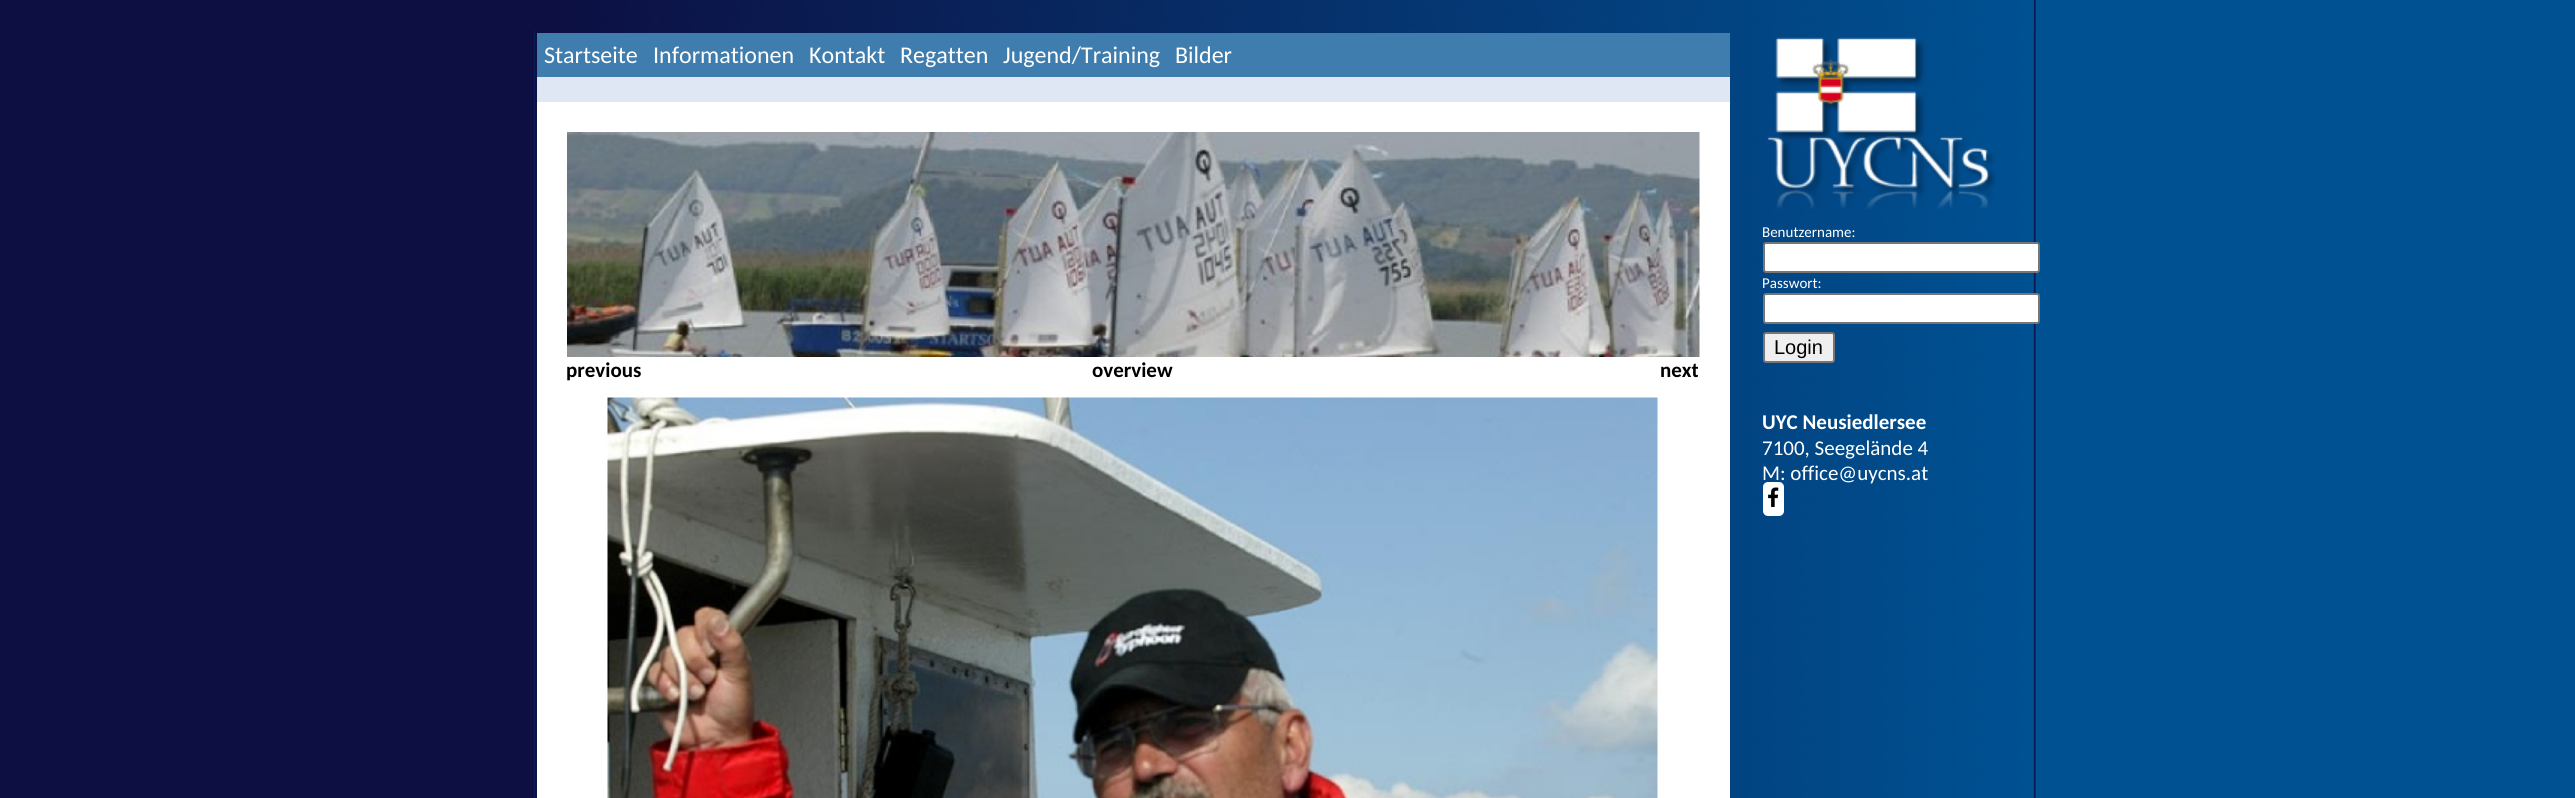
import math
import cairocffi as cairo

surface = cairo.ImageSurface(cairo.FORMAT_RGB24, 2575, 798)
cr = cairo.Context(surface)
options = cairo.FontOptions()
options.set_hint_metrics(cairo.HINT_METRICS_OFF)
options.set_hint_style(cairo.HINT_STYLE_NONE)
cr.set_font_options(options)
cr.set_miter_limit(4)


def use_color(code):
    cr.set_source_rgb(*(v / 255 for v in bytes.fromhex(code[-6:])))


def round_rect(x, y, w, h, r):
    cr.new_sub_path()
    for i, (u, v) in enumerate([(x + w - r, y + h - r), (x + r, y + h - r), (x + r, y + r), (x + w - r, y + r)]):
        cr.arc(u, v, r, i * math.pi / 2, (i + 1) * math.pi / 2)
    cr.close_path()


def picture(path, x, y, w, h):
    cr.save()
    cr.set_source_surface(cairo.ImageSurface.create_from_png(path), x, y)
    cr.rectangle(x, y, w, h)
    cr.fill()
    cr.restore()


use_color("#005192")
cr.paint()
use_color("#0d0f42")
cr.rectangle(0, 0, 534, 798)
cr.fill()
picture("img1.png", 534, 0, 1502, 798)
picture("img2.png", 534, 0, 1500, 30)
use_color("#ffffff")
cr.rectangle(537, 102, 1193, 696)
cr.fill()
use_color("#407daf")
cr.rectangle(537, 33, 1193, 44)
cr.fill()
cr.select_font_face("Carlito")
cr.set_font_size(24)
use_color("#ffffff")
cr.move_to(544, 63)
cr.show_text("Startseite")
cr.move_to(653, 63)
cr.show_text("Informationen")
cr.move_to(809, 63)
cr.show_text("Kontakt")
cr.move_to(900, 63)
cr.show_text("Regatten")
cr.move_to(1003, 63)
cr.show_text("Jugend/Training")
cr.move_to(1175, 63)
cr.show_text("Bilder")
use_color("#dfe7f4")
cr.rectangle(537, 77, 1193, 25)
cr.fill()
picture("img3.png", 567, 132, 1133, 225)
cr.select_font_face("Carlito", cairo.FONT_SLANT_NORMAL, cairo.FONT_WEIGHT_BOLD)
cr.set_font_size(21)
use_color("#000000")
cr.move_to(566, 377)
cr.show_text("previous")
cr.move_to(1092, 377)
cr.show_text("overview")
cr.move_to(1660, 377)
cr.show_text("next")
picture("img4.png", 607, 397, 1051, 401)
picture("img5.png", 1767, 37, 229, 172)
cr.select_font_face("Carlito")
cr.set_font_size(15)
use_color("#ffffff")
cr.move_to(1762, 237)
cr.show_text("Benutzername:")
round_rect(1764, 243, 275, 29, 2)
cr.fill_preserve()
use_color("#767676")
cr.stroke()
use_color("#ffffff")
cr.move_to(1762, 288)
cr.show_text("Passwort:")
round_rect(1764, 294, 275, 29, 2)
cr.fill_preserve()
use_color("#767676")
cr.stroke()
use_color("#efefef")
round_rect(1764, 333, 70, 29, 2)
cr.fill_preserve()
use_color("#767676")
cr.stroke()
cr.select_font_face("Liberation Sans")
cr.set_font_size(20)
use_color("#000000")
cr.move_to(1774, 354)
cr.show_text("Login")
cr.select_font_face("Carlito", cairo.FONT_SLANT_NORMAL, cairo.FONT_WEIGHT_BOLD)
cr.set_font_size(21)
use_color("#ffffff")
cr.move_to(1762, 429)
cr.show_text("UYC Neusiedlersee")
cr.select_font_face("Carlito")
cr.move_to(1762, 455)
cr.show_text("7100, Seegelände 4")
cr.move_to(1762, 480)
cr.show_text("M: office@uycns.at")
round_rect(1763, 482, 21, 34, 5)
cr.fill()
picture("img6.png", 1768, 487, 11, 20)
surface.write_to_png("result.png")
